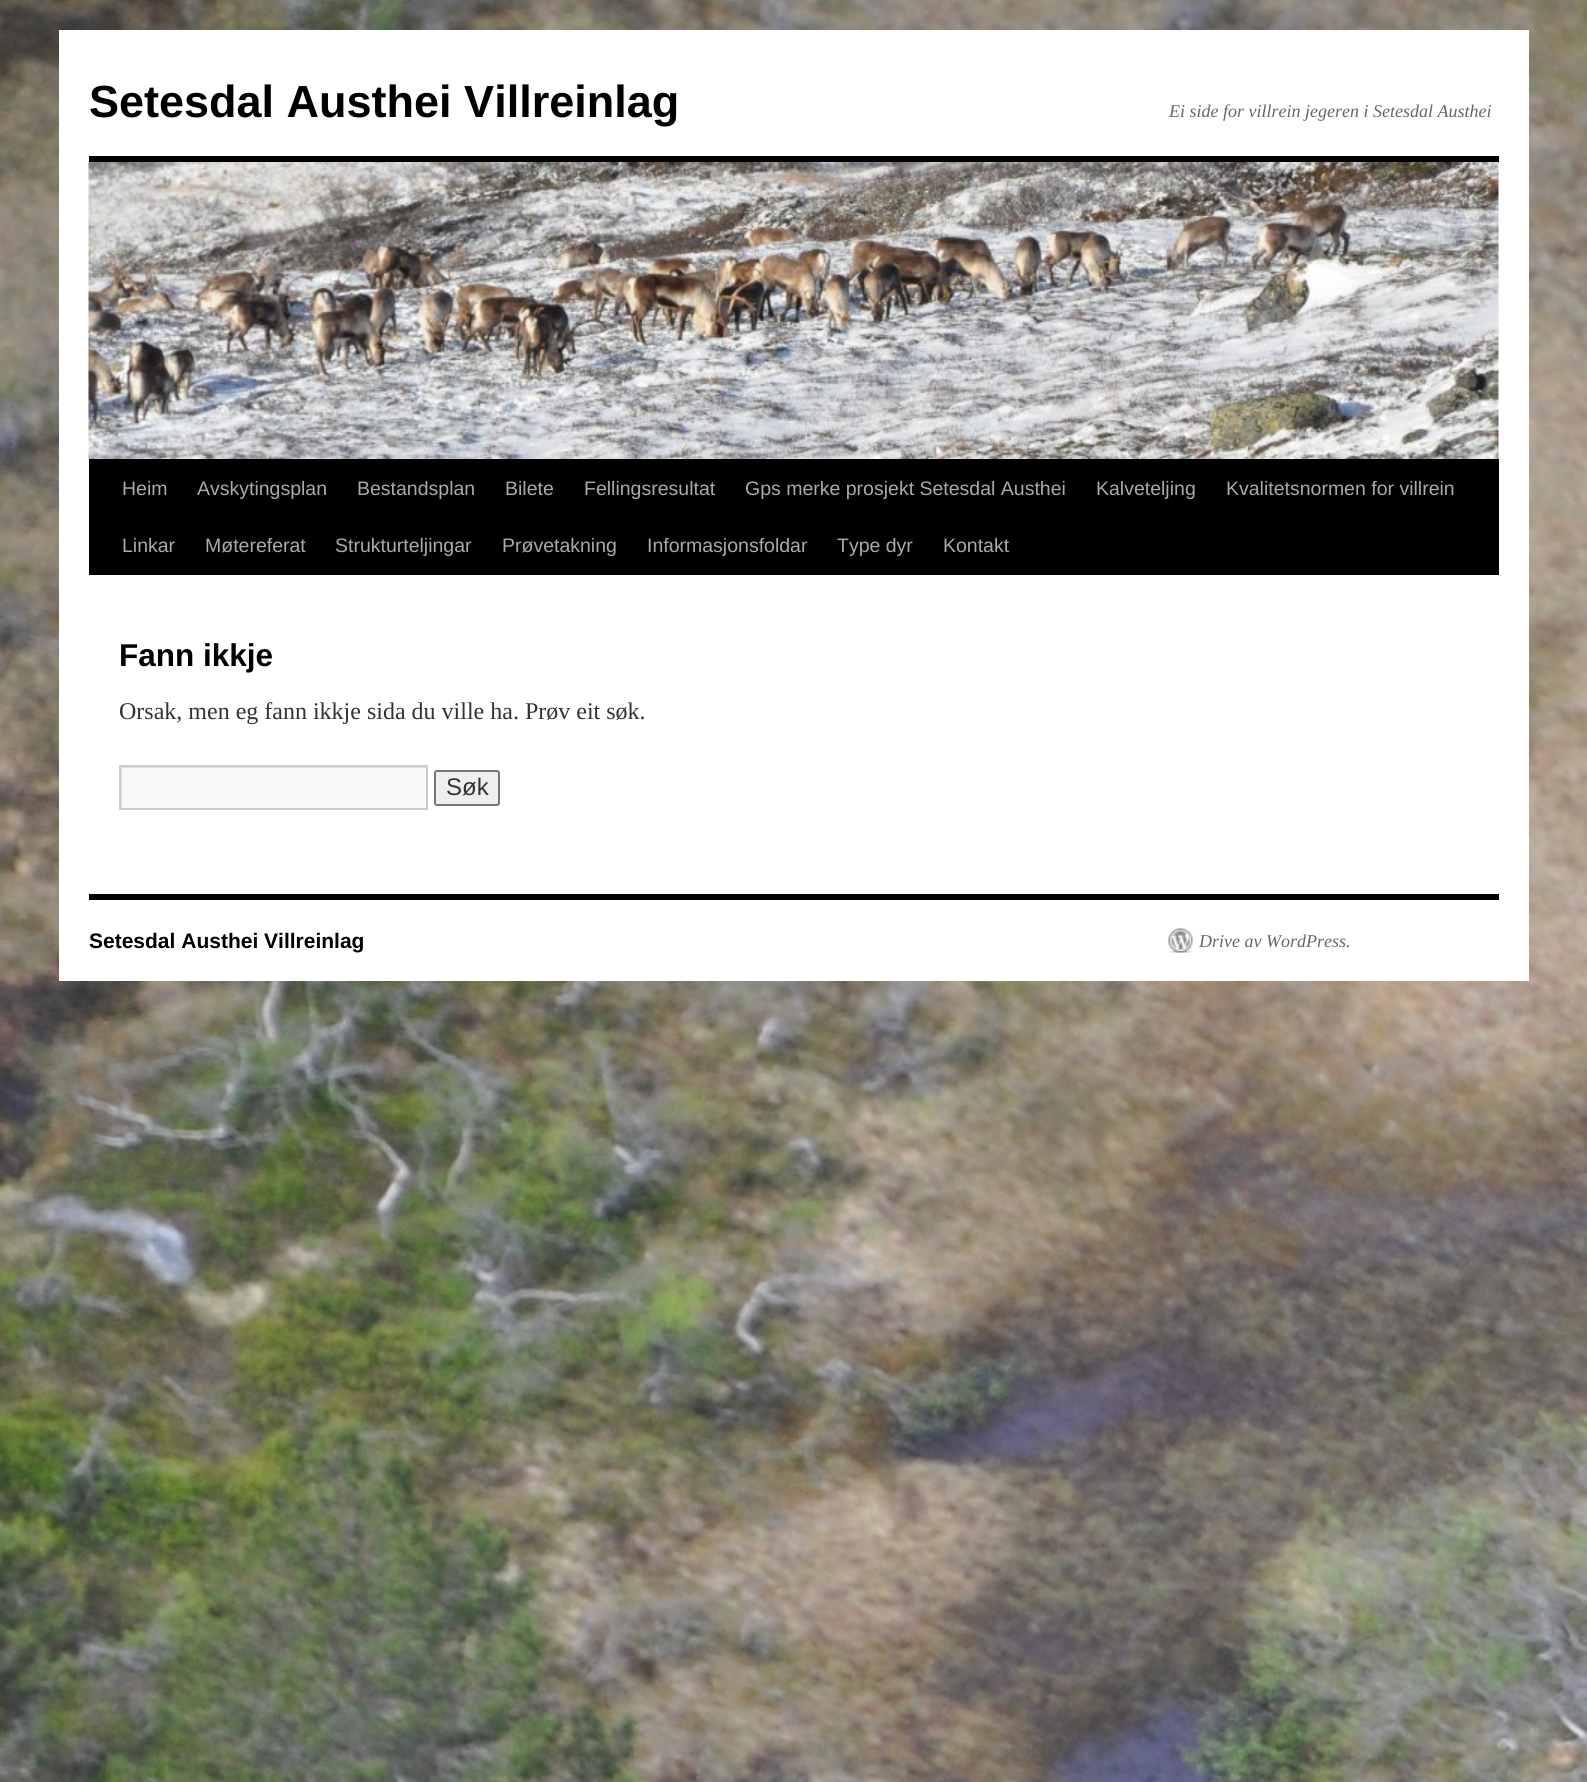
import math
import cairocffi as cairo

surface = cairo.ImageSurface(cairo.FORMAT_RGB24, 1587, 1782)
cr = cairo.Context(surface)
options = cairo.FontOptions()
options.set_hint_metrics(cairo.HINT_METRICS_OFF)
options.set_hint_style(cairo.HINT_STYLE_NONE)
cr.set_font_options(options)
cr.set_miter_limit(4)


def use_color(code):
    cr.set_source_rgb(*(v / 255 for v in bytes.fromhex(code[-6:])))


def round_rect(x, y, w, h, r):
    cr.new_sub_path()
    for i, (u, v) in enumerate([(x + w - r, y + h - r), (x + r, y + h - r), (x + r, y + r), (x + w - r, y + r)]):
        cr.arc(u, v, r, i * math.pi / 2, (i + 1) * math.pi / 2)
    cr.close_path()


def picture(path, x, y, w, h):
    cr.save()
    cr.set_source_surface(cairo.ImageSurface.create_from_png(path), x, y)
    cr.rectangle(x, y, w, h)
    cr.fill()
    cr.restore()


use_color("#ffffff")
cr.paint()
picture("img1.png", 0, 0, 1587, 1782)
use_color("#ffffff")
cr.rectangle(59, 30, 1470, 951)
cr.fill()
cr.select_font_face("Liberation Sans", cairo.FONT_SLANT_NORMAL, cairo.FONT_WEIGHT_BOLD)
cr.set_font_size(45)
use_color("#000000")
cr.move_to(89, 117)
cr.show_text("Setesdal Austhei Villreinlag")
cr.select_font_face("Liberation Serif", cairo.FONT_SLANT_ITALIC)
cr.set_font_size(18)
use_color("#666666")
cr.move_to(1169, 117)
cr.show_text("Ei side for villrein jegeren i Setesdal Austhei")
use_color("#000000")
cr.rectangle(89, 156, 1410, 6)
cr.fill()
cr.rectangle(89, 459, 1410, 116)
cr.fill()
picture("img2.png", 88, 162, 1411, 297)
cr.select_font_face("Liberation Sans")
cr.set_font_size(19.5)
use_color("#aaaaaa")
cr.move_to(122, 495)
cr.show_text("Heim")
cr.move_to(197, 495)
cr.show_text("Avskytingsplan")
cr.move_to(357, 495)
cr.show_text("Bestandsplan")
cr.move_to(505, 495)
cr.show_text("Bilete")
cr.move_to(584, 495)
cr.show_text("Fellingsresultat")
cr.move_to(745, 495)
cr.show_text("Gps merke prosjekt Setesdal Austhei")
cr.move_to(1096, 495)
cr.show_text("Kalveteljing")
cr.move_to(1226, 495)
cr.show_text("Kvalitetsnormen for villrein")
cr.move_to(122, 552)
cr.show_text("Linkar")
cr.move_to(205, 552)
cr.show_text("Møtereferat")
cr.move_to(335, 552)
cr.show_text("Strukturteljingar")
cr.move_to(502, 552)
cr.show_text("Prøvetakning")
cr.move_to(647, 552)
cr.show_text("Informasjonsfoldar")
cr.move_to(837, 552)
cr.show_text("Type dyr")
cr.move_to(943, 552)
cr.show_text("Kontakt")
cr.select_font_face("Liberation Sans", cairo.FONT_SLANT_NORMAL, cairo.FONT_WEIGHT_BOLD)
cr.set_font_size(31.5)
use_color("#000000")
cr.move_to(119, 666)
cr.show_text("Fann ikkje")
cr.select_font_face("Liberation Serif")
cr.set_font_size(24)
use_color("#333333")
cr.move_to(119, 719)
cr.show_text("Orsak, men eg fann ikkje sida du ville ha. Prøv eit søk.")
use_color("#f9f9f9")
cr.rectangle(122, 768, 304, 40)
cr.fill()
cr.save()
cr.rectangle(120, 767, 306, 42)
cr.clip()
use_color("#e0e0e0")
cr.set_fill_rule(cairo.FILL_RULE_EVEN_ODD)
cr.new_path()
cr.move_to(-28, 618)
cr.line_to(574, 618)
cr.line_to(574, 957)
cr.line_to(-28, 957)
cr.close_path()
cr.move_to(122, 768)
cr.line_to(428, 768)
cr.line_to(428, 810)
cr.line_to(122, 810)
cr.close_path()
cr.fill()
cr.restore()
cr.rectangle(120, 766, 307, 43)
use_color("#cccccc")
cr.stroke()
use_color("#efefef")
round_rect(435, 771, 64, 34, 2)
cr.fill_preserve()
use_color("#767676")
cr.stroke()
cr.select_font_face("Liberation Sans")
use_color("#333333")
cr.move_to(446, 795)
cr.show_text("Søk")
use_color("#000000")
cr.rectangle(89, 894, 1410, 6)
cr.fill()
cr.select_font_face("Liberation Sans", cairo.FONT_SLANT_NORMAL, cairo.FONT_WEIGHT_BOLD)
cr.set_font_size(21)
cr.move_to(89, 948)
cr.show_text("Setesdal Austhei Villreinlag")
picture("img3.png", 1168, 928, 25, 25)
cr.select_font_face("Liberation Serif", cairo.FONT_SLANT_ITALIC)
cr.set_font_size(18)
use_color("#666666")
cr.move_to(1199, 947)
cr.show_text("Drive av WordPress.")
surface.write_to_png("result.png")
